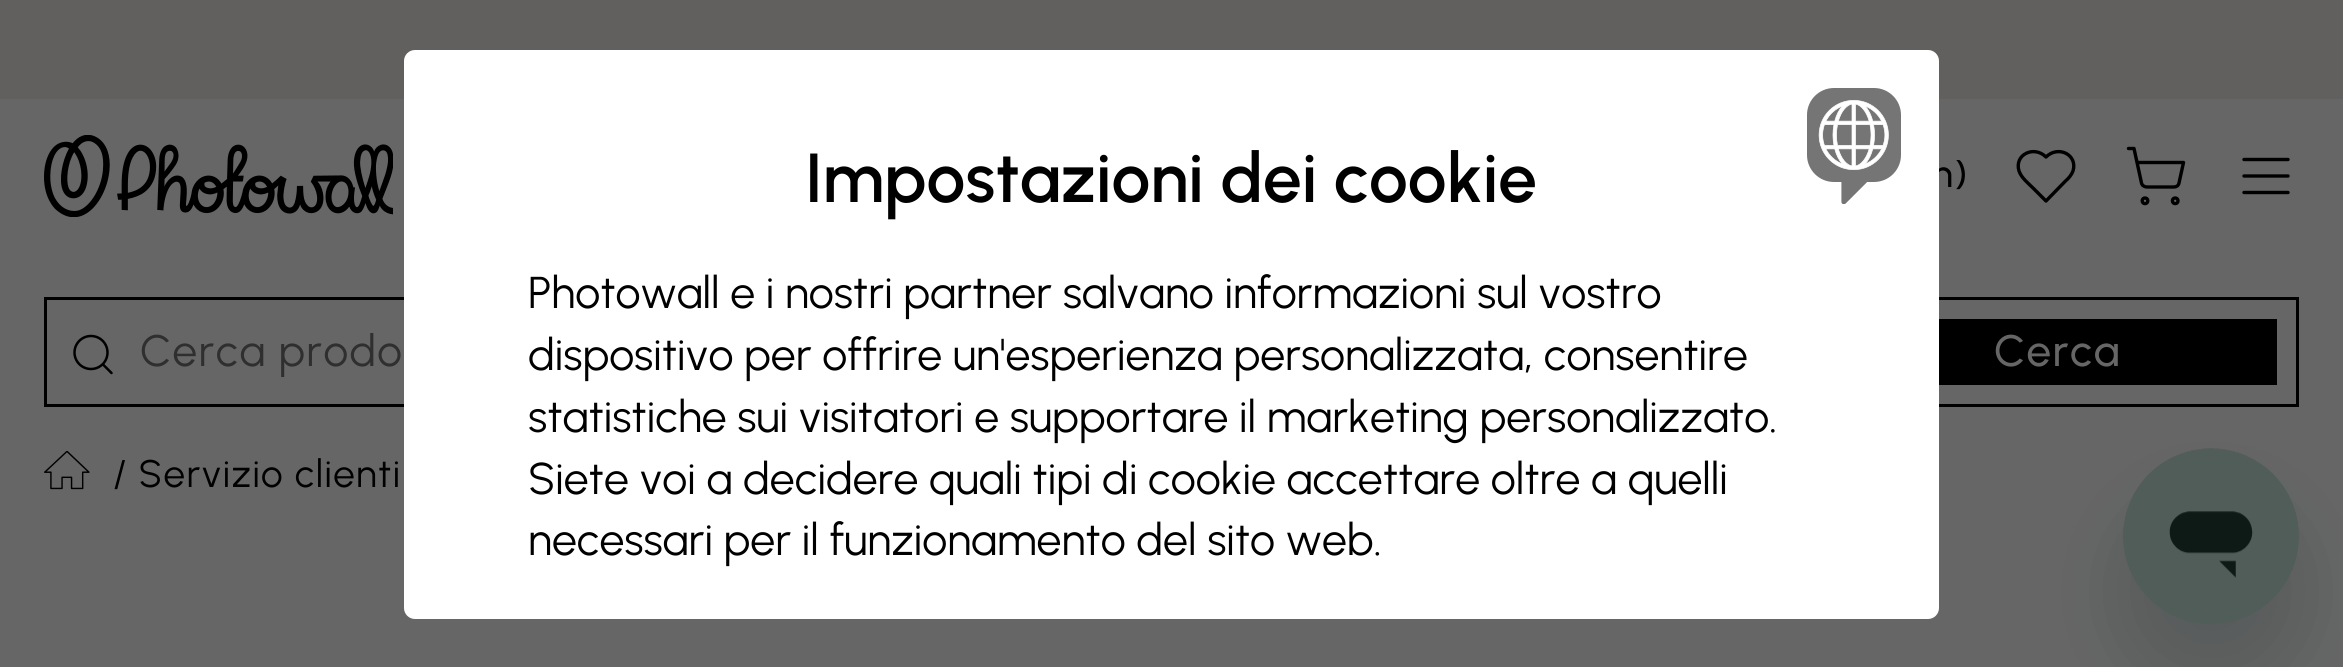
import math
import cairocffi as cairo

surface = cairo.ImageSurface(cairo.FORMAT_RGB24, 2343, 667)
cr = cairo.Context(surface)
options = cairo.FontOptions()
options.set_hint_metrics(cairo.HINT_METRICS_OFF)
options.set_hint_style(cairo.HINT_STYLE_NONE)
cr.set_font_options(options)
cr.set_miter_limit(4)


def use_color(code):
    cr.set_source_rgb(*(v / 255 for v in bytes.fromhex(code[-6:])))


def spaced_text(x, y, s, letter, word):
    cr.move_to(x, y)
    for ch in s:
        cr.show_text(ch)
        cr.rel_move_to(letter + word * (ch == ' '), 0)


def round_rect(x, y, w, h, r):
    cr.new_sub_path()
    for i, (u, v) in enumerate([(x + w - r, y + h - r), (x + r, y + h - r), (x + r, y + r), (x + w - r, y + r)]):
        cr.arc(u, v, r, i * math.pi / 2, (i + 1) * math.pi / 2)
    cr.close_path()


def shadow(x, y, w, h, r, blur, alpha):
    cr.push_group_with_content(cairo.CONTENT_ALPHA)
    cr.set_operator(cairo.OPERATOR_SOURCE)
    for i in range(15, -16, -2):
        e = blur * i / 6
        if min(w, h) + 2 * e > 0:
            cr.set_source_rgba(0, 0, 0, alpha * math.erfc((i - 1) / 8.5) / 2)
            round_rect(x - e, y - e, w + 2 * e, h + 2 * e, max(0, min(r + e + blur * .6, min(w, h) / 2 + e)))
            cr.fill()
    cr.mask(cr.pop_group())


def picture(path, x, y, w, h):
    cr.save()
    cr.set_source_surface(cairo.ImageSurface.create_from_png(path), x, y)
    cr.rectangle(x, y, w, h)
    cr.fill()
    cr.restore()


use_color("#666666")
cr.paint()
use_color("#62605f")
cr.rectangle(0, 0, 2343, 99)
cr.fill()
cr.select_font_face("Urbanist Medium")
cr.set_font_size(38.5)
use_color("#000000")
spaced_text(1932, 187, "n)", 1.4, 0)
cr.rectangle(45.5, 298.5, 2252, 107)
cr.set_line_width(3)
cr.stroke()
use_color("#ffffff")
round_rect(404, 50, 1535, 569, 11)
cr.fill()
cr.select_font_face("Urbanist SemiBold")
cr.set_font_size(69.25)
use_color("#000000")
cr.move_to(805, 202)
cr.show_text("Impostazioni dei cookie")
cr.select_font_face("Urbanist")
cr.set_font_size(44.55)
cr.move_to(528, 308)
cr.show_text("Photowall e i nostri partner salvano informazioni sul vostro")
cr.move_to(528, 370)
cr.show_text("dispositivo per offrire un'esperienza personalizzata, consentire")
cr.move_to(528, 432)
cr.show_text("statistiche sui visitatori e supportare il marketing personalizzato.")
cr.move_to(528, 494)
cr.show_text("Siete voi a decidere quali tipi di cookie accettare oltre a quelli")
cr.move_to(528, 555)
cr.show_text("necessari per il funzionamento del sito web.")
picture("img1.png", 1807, 88, 94, 116)
picture("img2.png", 44, 135, 349, 82)
cr.new_path()
cr.move_to(2065, 181.5)
cr.curve_to(2068.5, 178.5, 2071.5, 175, 2073, 171)
cr.curve_to(2078, 154.5, 2058, 145, 2046, 157)
cr.curve_to(2034, 145, 2014, 154.5, 2019, 171)
cr.curve_to(2021.5, 178, 2028, 183, 2033, 188)
cr.line_to(2046, 201)
cr.close_path()
cr.set_line_width(3.4)
cr.set_line_cap(cairo.LINE_CAP_ROUND)
cr.set_line_join(cairo.LINE_JOIN_ROUND)
cr.stroke()
cr.arc(2145, 200.8, 2.8, 0, 2 * math.pi)
cr.set_line_cap(cairo.LINE_CAP_BUTT)
cr.set_line_join(cairo.LINE_JOIN_MITER)
cr.stroke()
cr.arc(2175.2, 200.8, 2.8, 0, 2 * math.pi)
cr.stroke()
cr.new_path()
cr.move_to(2128.5, 148.5)
cr.line_to(2134, 148.5)
cr.line_to(2141.5, 183)
cr.curve_to(2142, 185.5, 2144.5, 187, 2147, 187)
cr.line_to(2174, 187)
cr.curve_to(2176.5, 187, 2178.5, 185.5, 2179, 183)
cr.line_to(2183.5, 162.5)
cr.line_to(2137, 162.5)
cr.set_line_cap(cairo.LINE_CAP_ROUND)
cr.set_line_join(cairo.LINE_JOIN_ROUND)
cr.stroke()
cr.new_path()
cr.move_to(2244, 176)
cr.line_to(2288, 176)
cr.move_to(2244, 159.5)
cr.line_to(2288, 159.5)
cr.move_to(2244, 192.5)
cr.line_to(2288, 192.5)
cr.stroke()
cr.arc(91, 352.5, 16.5, 0, 2 * math.pi)
cr.set_line_width(2.5)
cr.set_line_cap(cairo.LINE_CAP_BUTT)
cr.set_line_join(cairo.LINE_JOIN_MITER)
cr.stroke()
cr.new_path()
cr.move_to(111.5, 373)
cr.line_to(103, 364.5)
cr.set_line_cap(cairo.LINE_CAP_ROUND)
cr.set_line_join(cairo.LINE_JOIN_ROUND)
cr.stroke()
cr.set_font_size(44)
use_color("#2f2f2f")
spaced_text(140, 366, "Cerca prodo", 1.4, 0)
use_color("#000000")
cr.rectangle(1939, 319, 338, 66)
cr.fill()
cr.select_font_face("Urbanist Medium")
use_color("#666666")
spaced_text(1994, 366, "Cerca", 1.4, 0)
picture("img3.png", 44, 451, 46, 39)
cr.select_font_face("Urbanist")
cr.set_font_size(38.5)
use_color("#000000")
spaced_text(113, 487, "/ Servizio clienti", 1.4, 0)
use_color("#091d1f")
shadow(2123, 503, 176, 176, 88, 41, 0.15)
picture("img4.png", 2123, 448, 176, 177)
surface.write_to_png("result.png")
